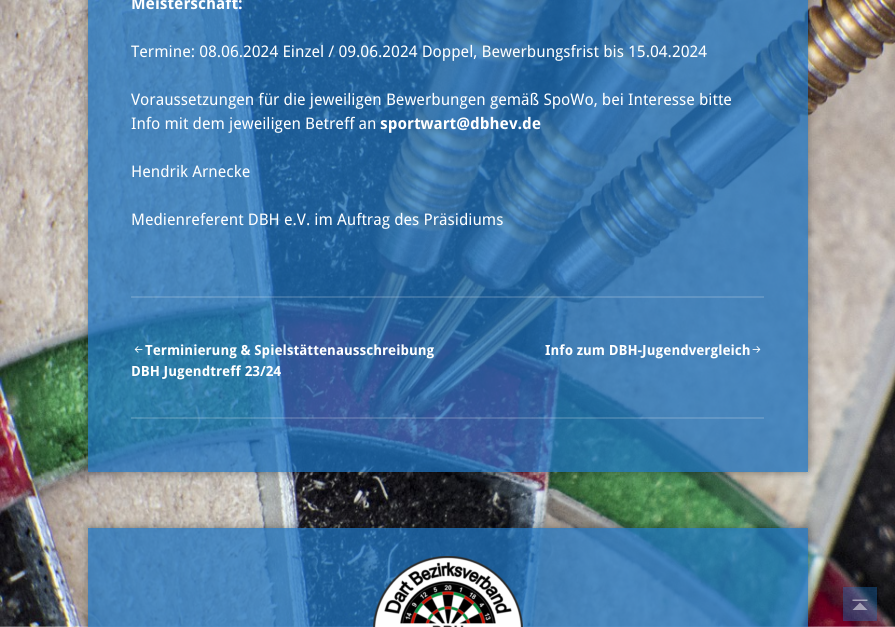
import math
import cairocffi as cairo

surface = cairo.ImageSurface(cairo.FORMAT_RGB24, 895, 627)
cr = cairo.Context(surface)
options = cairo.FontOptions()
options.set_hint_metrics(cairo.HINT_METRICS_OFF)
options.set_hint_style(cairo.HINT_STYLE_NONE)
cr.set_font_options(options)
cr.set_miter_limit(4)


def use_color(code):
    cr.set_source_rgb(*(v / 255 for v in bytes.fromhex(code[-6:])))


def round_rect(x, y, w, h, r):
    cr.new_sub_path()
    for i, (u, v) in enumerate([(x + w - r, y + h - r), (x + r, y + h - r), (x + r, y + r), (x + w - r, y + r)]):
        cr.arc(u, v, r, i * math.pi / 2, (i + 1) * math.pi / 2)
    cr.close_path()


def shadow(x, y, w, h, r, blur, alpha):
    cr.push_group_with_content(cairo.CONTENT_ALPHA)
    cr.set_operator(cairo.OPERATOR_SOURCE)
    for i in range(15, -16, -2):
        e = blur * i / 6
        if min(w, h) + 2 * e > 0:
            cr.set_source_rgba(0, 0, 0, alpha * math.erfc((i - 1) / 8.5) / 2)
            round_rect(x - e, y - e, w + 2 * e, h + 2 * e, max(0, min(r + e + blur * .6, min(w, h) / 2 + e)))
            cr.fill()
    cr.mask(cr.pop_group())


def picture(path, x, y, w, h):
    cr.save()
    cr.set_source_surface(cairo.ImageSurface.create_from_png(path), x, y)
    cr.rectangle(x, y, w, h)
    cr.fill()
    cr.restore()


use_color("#ffffff")
cr.paint()
picture("img1.png", 0, 0, 895, 627)
cr.save()
cr.set_fill_rule(cairo.FILL_RULE_EVEN_ODD)
cr.new_path()
cr.move_to(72, 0)
cr.line_to(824, 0)
cr.line_to(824, 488)
cr.line_to(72, 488)
cr.close_path()
cr.move_to(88, -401)
cr.line_to(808, -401)
cr.line_to(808, 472)
cr.line_to(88, 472)
cr.close_path()
cr.clip()
use_color("#000000")
shadow(88, -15, 720, 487, 0, 5, 0.4)
cr.restore()
cr.set_source_rgba(0.118, 0.451, 0.745, 0.75)
cr.rectangle(88, 0, 720, 472)
cr.fill()
cr.set_source_rgba(1, 1, 1, 0.15)
cr.rectangle(131, 296, 633, 2)
cr.fill()
cr.select_font_face("Droid Sans", cairo.FONT_SLANT_NORMAL, cairo.FONT_WEIGHT_BOLD)
cr.set_font_size(16)
use_color("#ffffff")
cr.move_to(131, 9)
cr.show_text("Meisterschaft:")
cr.select_font_face("Droid Sans")
cr.move_to(131, 57)
cr.show_text("Termine: 08.06.2024 Einzel / 09.06.2024 Doppel, Bewerbungsfrist bis 15.04.2024")
cr.move_to(131, 105)
cr.show_text("Voraussetzungen für die jeweiligen Bewerbungen gemäß SpoWo, bei Interesse bitte")
cr.move_to(131, 129)
cr.show_text("Info mit dem jeweiligen Betreff an")
cr.select_font_face("Droid Sans", cairo.FONT_SLANT_NORMAL, cairo.FONT_WEIGHT_BOLD)
cr.move_to(380, 129)
cr.show_text("sportwart@dbhev.de")
cr.select_font_face("Droid Sans")
cr.move_to(131, 177)
cr.show_text("Hendrik Arnecke")
cr.move_to(131, 225)
cr.show_text("Medienreferent DBH e.V. im Auftrag des Präsidiums")
cr.set_source_rgba(1, 1, 1, 0.15)
cr.rectangle(131, 417, 633, 2)
cr.fill()
picture("img2.png", 134, 346, 9, 7)
cr.select_font_face("Droid Sans", cairo.FONT_SLANT_NORMAL, cairo.FONT_WEIGHT_BOLD)
cr.set_font_size(14)
use_color("#ffffff")
cr.move_to(145, 355)
cr.show_text("Terminierung & Spielstättenausschreibung")
cr.move_to(131, 376)
cr.show_text("DBH Jugendtreff 23/24")
cr.move_to(545, 355)
cr.show_text("Info zum DBH-Jugendvergleich")
picture("img3.png", 752, 346, 9, 7)
cr.save()
cr.set_fill_rule(cairo.FILL_RULE_EVEN_ODD)
cr.new_path()
cr.move_to(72, 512)
cr.line_to(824, 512)
cr.line_to(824, 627)
cr.line_to(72, 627)
cr.close_path()
cr.move_to(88, 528)
cr.line_to(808, 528)
cr.line_to(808, 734)
cr.line_to(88, 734)
cr.close_path()
cr.clip()
use_color("#000000")
shadow(88, 528, 720, 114, 0, 5, 0.4)
cr.restore()
cr.set_source_rgba(0.118, 0.451, 0.745, 0.75)
cr.rectangle(88, 528, 720, 99)
cr.fill()
picture("img4.png", 373, 556, 150, 71)
cr.set_source_rgba(0.118, 0.451, 0.745, 0.38)
cr.rectangle(843, 587, 34, 34)
cr.fill()
picture("img5.png", 852, 599, 16, 11)
surface.write_to_png("result.png")
